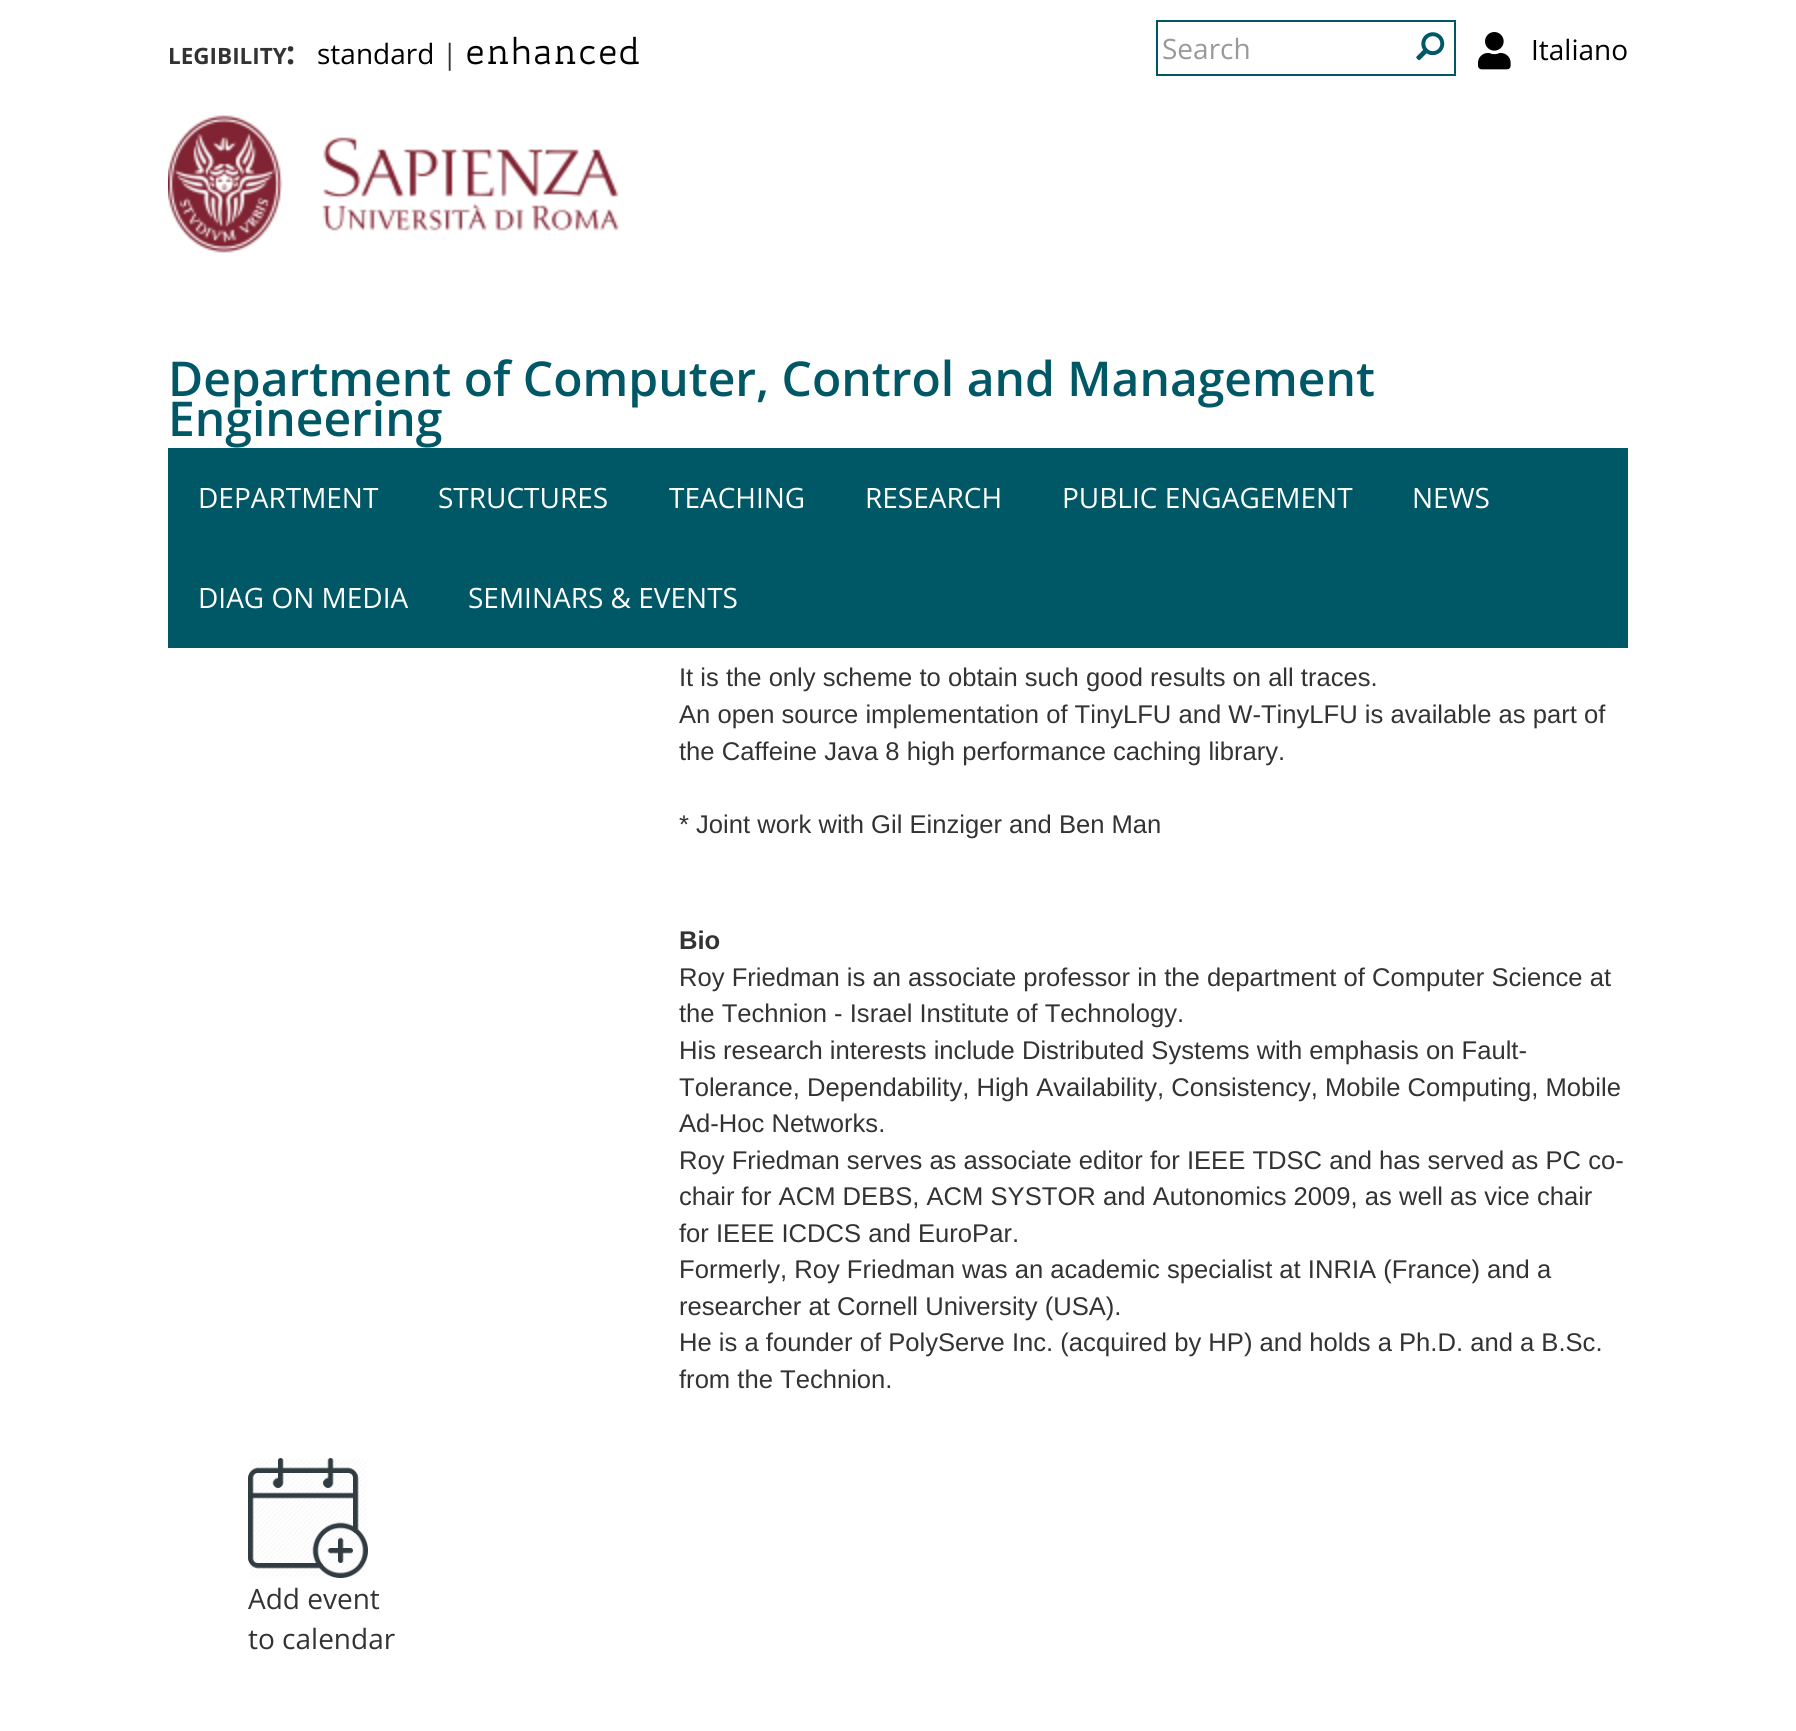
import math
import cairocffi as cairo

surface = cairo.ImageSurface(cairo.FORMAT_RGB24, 1796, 1731)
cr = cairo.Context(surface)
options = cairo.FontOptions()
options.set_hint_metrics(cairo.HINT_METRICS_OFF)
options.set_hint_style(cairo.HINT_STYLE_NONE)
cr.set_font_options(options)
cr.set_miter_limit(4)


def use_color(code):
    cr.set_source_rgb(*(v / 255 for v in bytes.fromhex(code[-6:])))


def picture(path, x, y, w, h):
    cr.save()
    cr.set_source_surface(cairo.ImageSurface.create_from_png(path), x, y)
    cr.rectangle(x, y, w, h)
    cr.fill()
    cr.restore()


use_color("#ffffff")
cr.paint()
cr.select_font_face("Open Sans", cairo.FONT_SLANT_NORMAL, cairo.FONT_WEIGHT_BOLD)
cr.set_font_size(22.5)
use_color("#333333")
cr.move_to(168, 64)
cr.show_text("LEGIBILITY")
cr.set_font_size(32)
cr.move_to(286, 64)
cr.show_text(":")
cr.select_font_face("Open Sans")
cr.set_font_size(28)
use_color("#000000")
cr.move_to(317, 64)
cr.show_text("standard")
use_color("#333333")
cr.move_to(442, 64)
cr.show_text("|")
cr.select_font_face("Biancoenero")
cr.set_font_size(36.5)
use_color("#000000")
cr.move_to(465, 64)
cr.show_text("enhanced")
use_color("#005866")
cr.rectangle(1156, 20, 300, 2)
cr.fill()
cr.rectangle(1156, 74, 252, 2)
cr.fill()
cr.rectangle(1156, 20, 2, 56)
cr.fill()
cr.select_font_face("Open Sans")
cr.set_font_size(28)
use_color("#999999")
cr.move_to(1162, 59)
cr.show_text("Search")
use_color("#005866")
cr.rectangle(1454, 20, 2, 56)
cr.fill()
cr.rectangle(1406, 74, 50, 2)
cr.fill()
picture("img1.png", 1416, 32, 29, 29)
picture("img2.png", 1478, 32, 33, 38)
use_color("#000000")
cr.move_to(1531, 60)
cr.show_text("Italiano")
picture("img3.png", 168, 115, 451, 138)
cr.select_font_face("Open Sans SemiBold")
cr.set_font_size(48)
use_color("#005866")
cr.move_to(168, 396)
cr.show_text("Department of Computer, Control and Management")
cr.move_to(168, 436)
cr.show_text("Engineering")
cr.rectangle(168, 448, 1460, 200)
cr.fill()
cr.select_font_face("Open Sans")
cr.set_font_size(28)
use_color("#ffffff")
cr.move_to(198, 508)
cr.show_text("DEPARTMENT")
cr.move_to(438, 508)
cr.show_text("STRUCTURES")
cr.move_to(669, 508)
cr.show_text("TEACHING")
cr.move_to(865, 508)
cr.show_text("RESEARCH")
cr.move_to(1062, 508)
cr.show_text("PUBLIC ENGAGEMENT")
cr.move_to(1412, 508)
cr.show_text("NEWS")
cr.move_to(198, 608)
cr.show_text("DIAG ON MEDIA")
cr.move_to(468, 608)
cr.show_text("SEMINARS & EVENTS")
cr.select_font_face("Liberation Sans")
cr.set_font_size(25.6)
use_color("#333333")
cr.move_to(679, 686)
cr.show_text("It is the only scheme to obtain such good results on all traces.")
cr.move_to(679, 723)
cr.show_text("An open source implementation of TinyLFU and W-TinyLFU is available as part of")
cr.move_to(679, 760)
cr.show_text("the Caffeine Java 8 high performance caching library.")
cr.move_to(679, 833)
cr.show_text("* Joint work with Gil Einziger and Ben Man")
cr.select_font_face("Liberation Sans", cairo.FONT_SLANT_NORMAL, cairo.FONT_WEIGHT_BOLD)
cr.move_to(679, 949)
cr.show_text("Bio")
cr.select_font_face("Liberation Sans")
cr.move_to(679, 986)
cr.show_text("Roy Friedman is an associate professor in the department of Computer Science at")
cr.move_to(679, 1022)
cr.show_text("the Technion - Israel Institute of Technology.")
cr.move_to(679, 1059)
cr.show_text("His research interests include Distributed Systems with emphasis on Fault-")
cr.move_to(679, 1096)
cr.show_text("Tolerance, Dependability, High Availability, Consistency, Mobile Computing, Mobile")
cr.move_to(679, 1132)
cr.show_text("Ad-Hoc Networks.")
cr.move_to(679, 1169)
cr.show_text("Roy Friedman serves as associate editor for IEEE TDSC and has served as PC co-")
cr.move_to(679, 1205)
cr.show_text("chair for ACM DEBS, ACM SYSTOR and Autonomics 2009, as well as vice chair")
cr.move_to(679, 1242)
cr.show_text("for IEEE ICDCS and EuroPar.")
cr.move_to(679, 1278)
cr.show_text("Formerly, Roy Friedman was an academic specialist at INRIA (France) and a")
cr.move_to(679, 1315)
cr.show_text("researcher at Cornell University (USA).")
cr.move_to(679, 1351)
cr.show_text("He is a founder of PolyServe Inc. (acquired by HP) and holds a Ph.D. and a B.Sc.")
cr.move_to(679, 1388)
cr.show_text("from the Technion.")
picture("img4.png", 248, 1458, 120, 120)
cr.select_font_face("Open Sans")
cr.set_font_size(28)
cr.move_to(248, 1609)
cr.show_text("Add event")
cr.move_to(248, 1649)
cr.show_text("to calendar")
surface.write_to_png("result.png")
